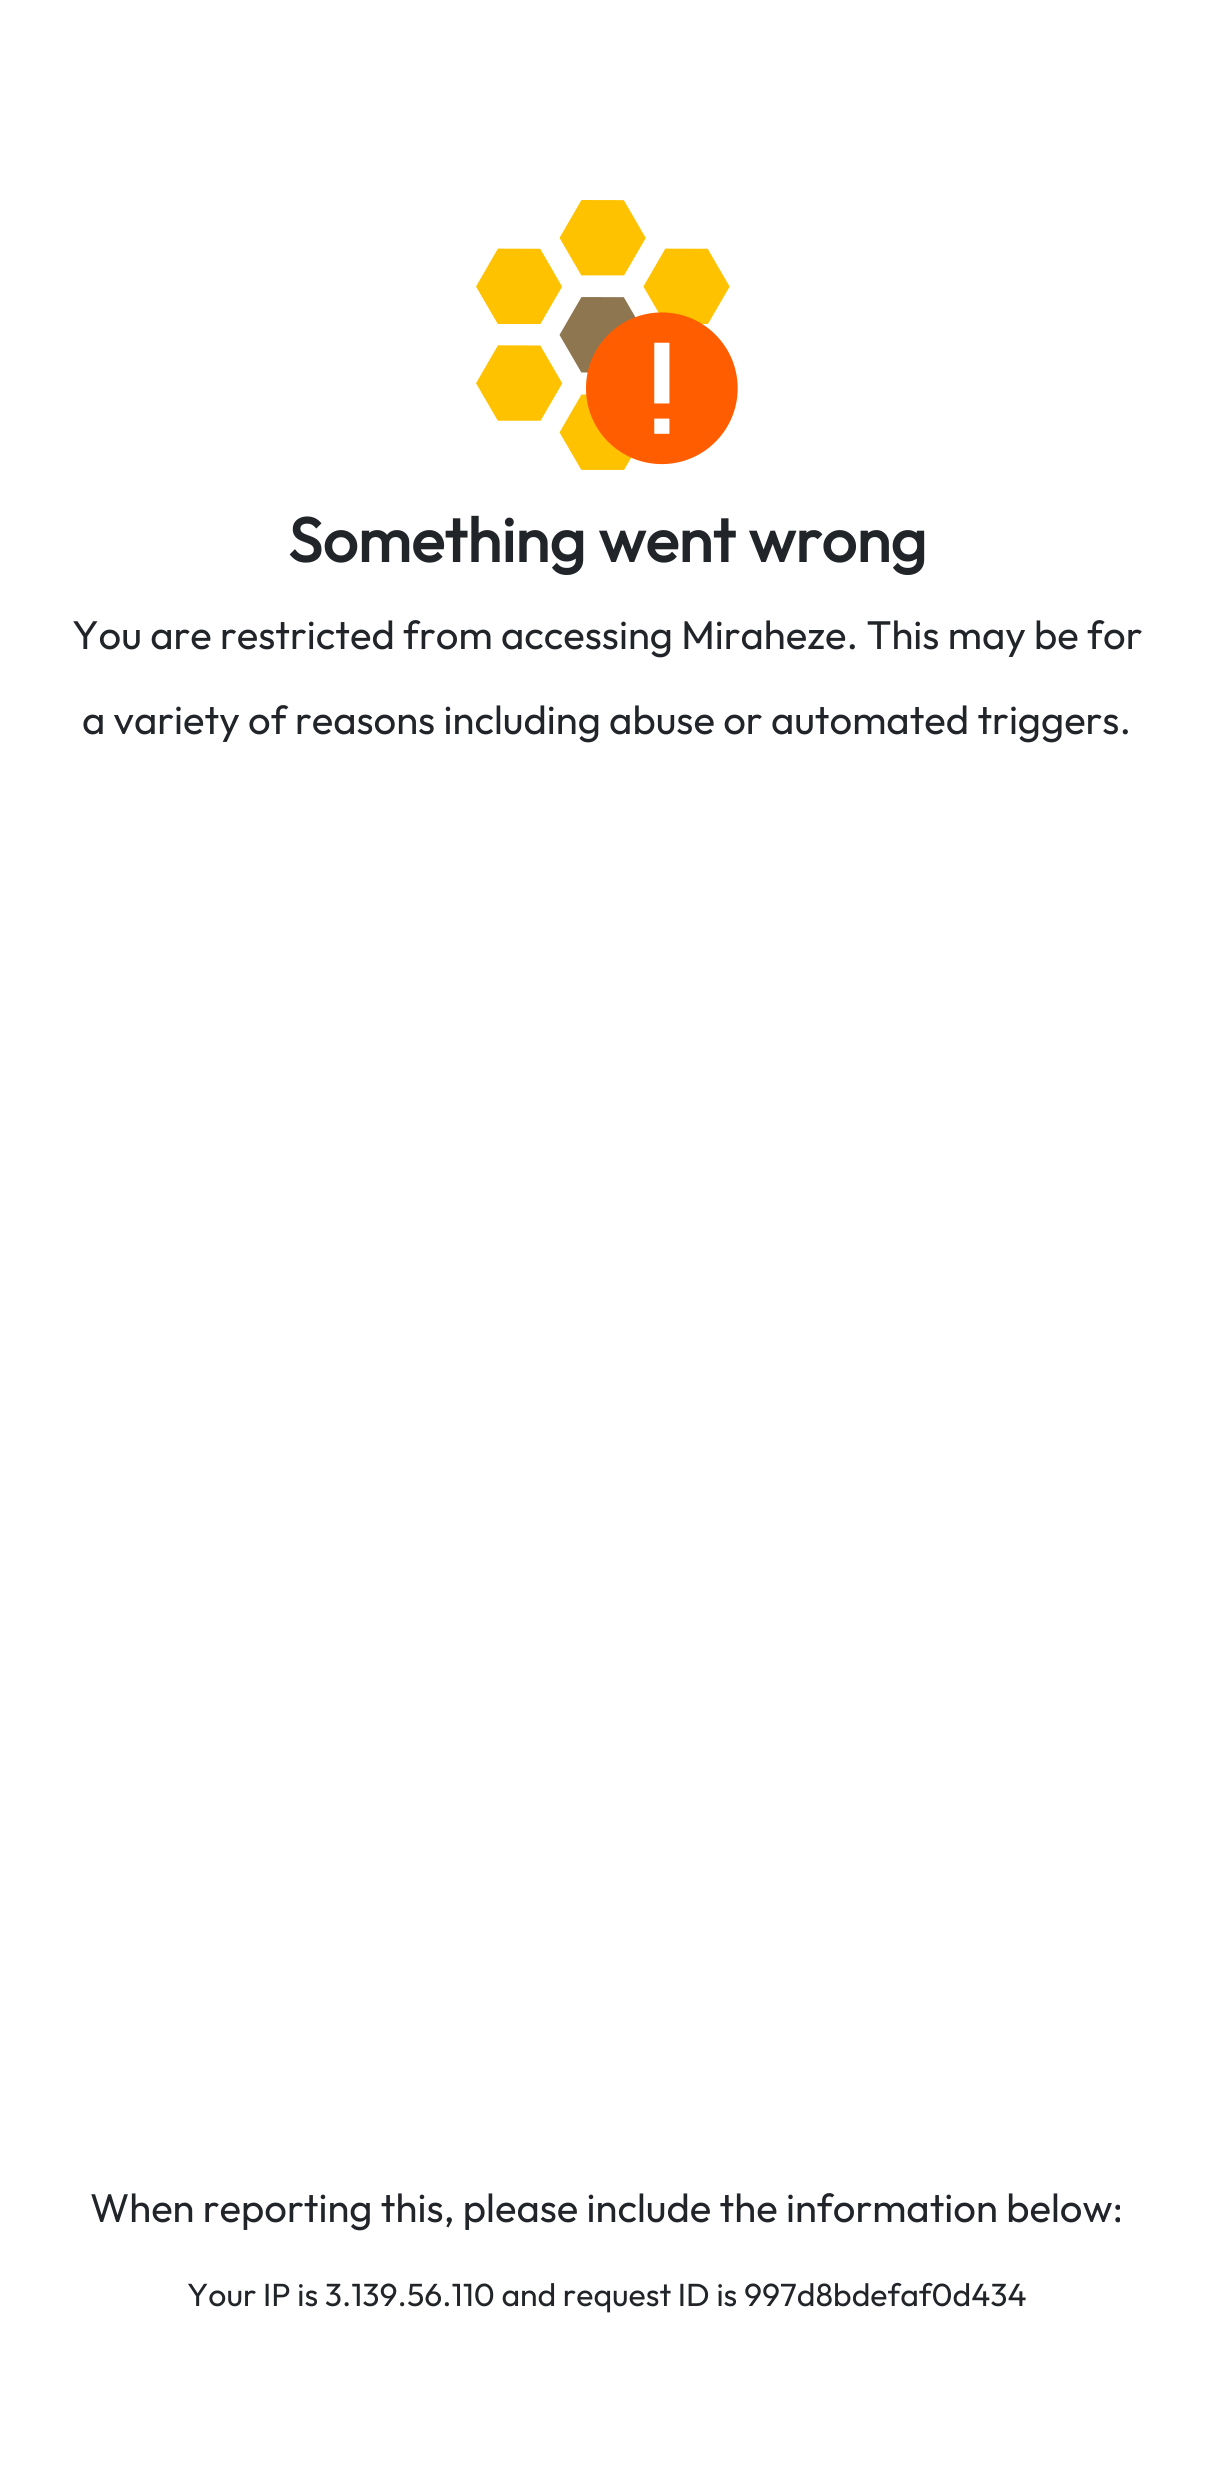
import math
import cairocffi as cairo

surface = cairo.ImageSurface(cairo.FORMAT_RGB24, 1213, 2487)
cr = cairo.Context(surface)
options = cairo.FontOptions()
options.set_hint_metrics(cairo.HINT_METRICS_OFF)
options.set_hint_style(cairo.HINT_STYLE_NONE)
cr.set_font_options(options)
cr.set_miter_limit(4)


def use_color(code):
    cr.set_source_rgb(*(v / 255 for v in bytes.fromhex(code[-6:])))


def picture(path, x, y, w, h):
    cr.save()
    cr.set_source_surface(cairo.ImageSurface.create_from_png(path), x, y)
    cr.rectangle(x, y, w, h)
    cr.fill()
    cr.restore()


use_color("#ffffff")
cr.paint()
picture("img1.png", 476, 200, 262, 270)
cr.select_font_face("Outfit", cairo.FONT_SLANT_NORMAL, cairo.FONT_WEIGHT_BOLD)
cr.set_font_size(62.25)
use_color("#212529")
cr.move_to(288, 562)
cr.show_text("Something went wrong")
cr.select_font_face("Outfit")
cr.set_font_size(40)
cr.move_to(72, 649)
cr.show_text("You are restricted from accessing Miraheze. This may be for")
cr.move_to(82, 734)
cr.show_text("a variety of reasons including abuse or automated triggers.")
cr.move_to(90, 2222)
cr.show_text("When reporting this, please include the information below:")
cr.set_font_size(32)
cr.move_to(187, 2306)
cr.show_text("Your IP is 3.139.56.110 and request ID is 997d8bdefaf0d434")
surface.write_to_png("result.png")
